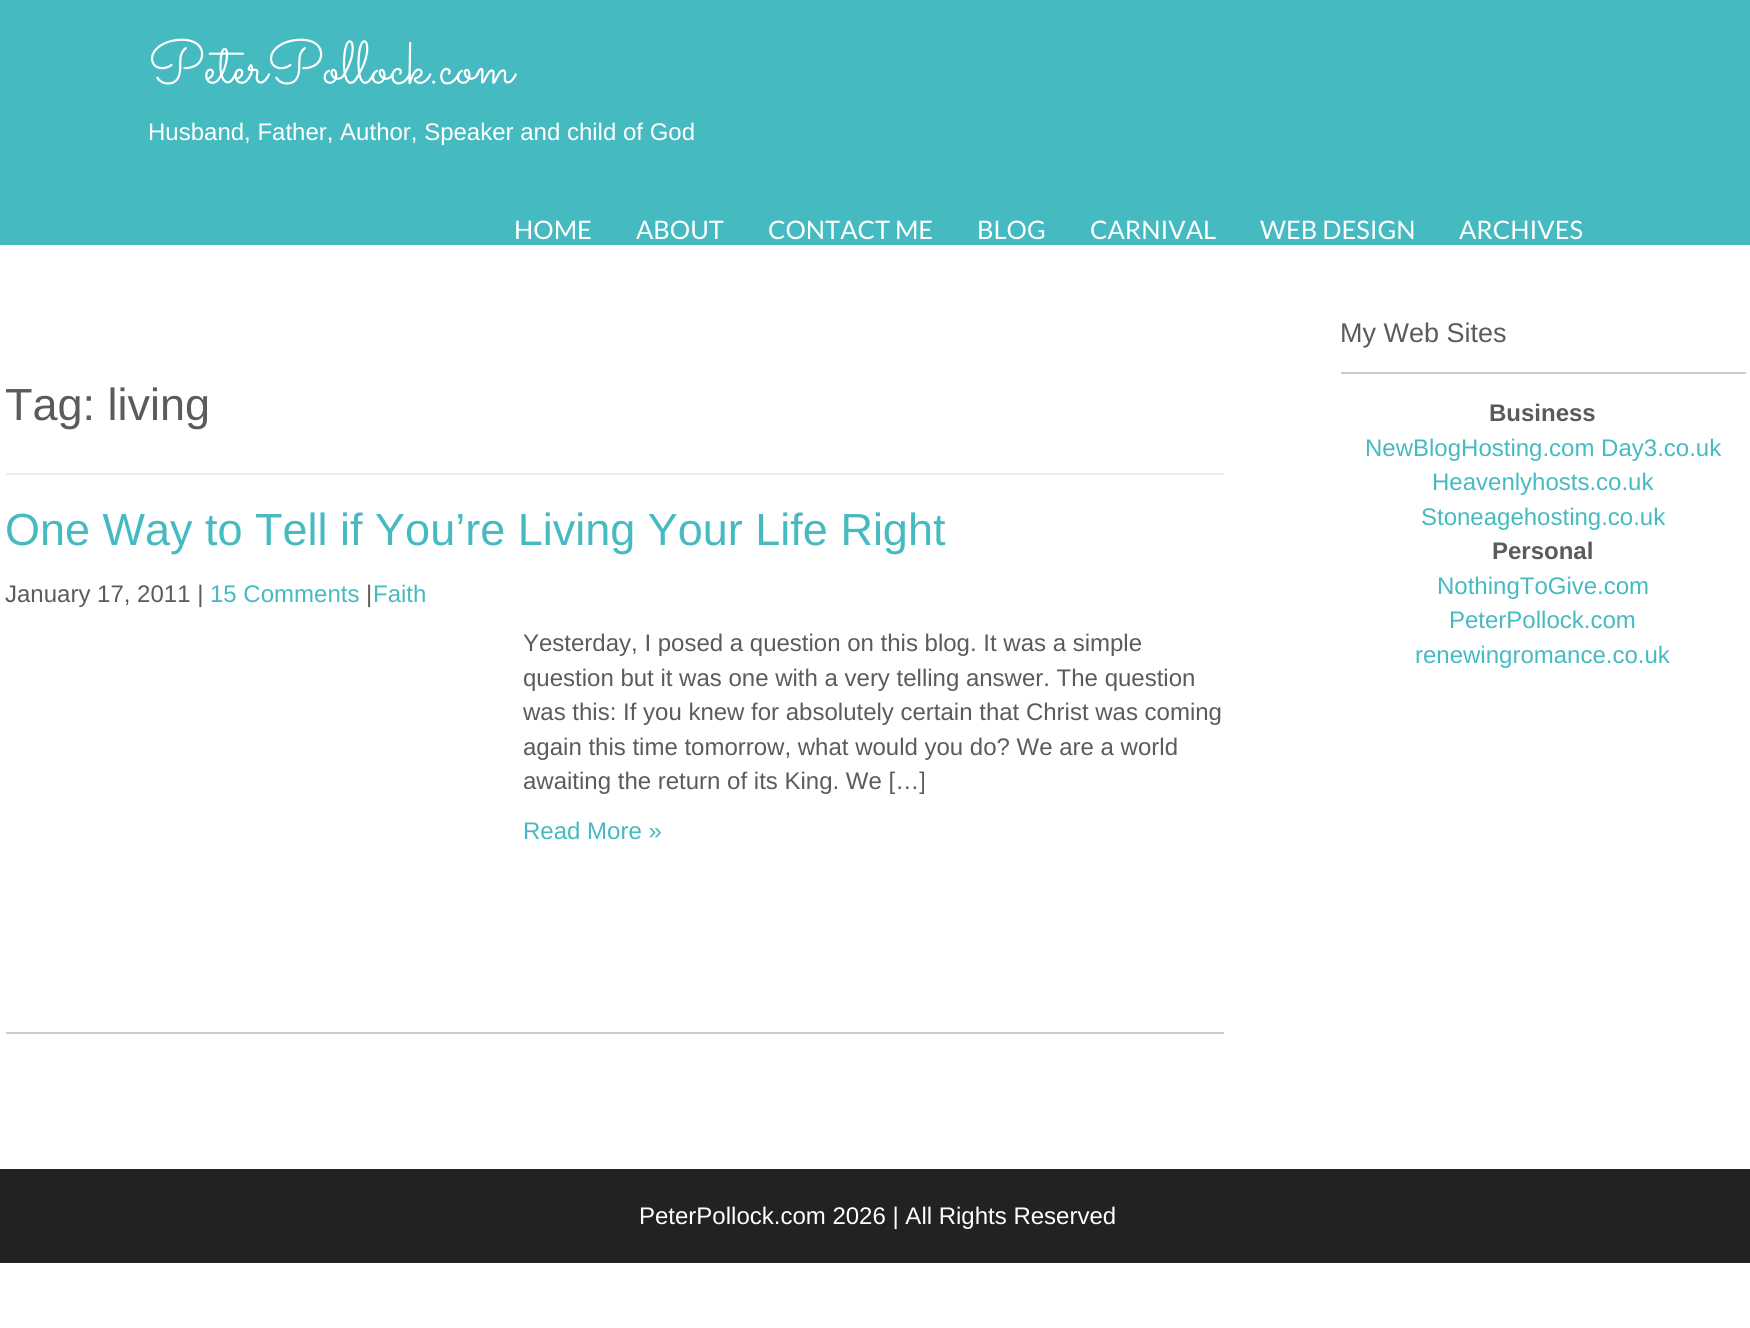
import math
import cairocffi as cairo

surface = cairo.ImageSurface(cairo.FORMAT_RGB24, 1750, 1328)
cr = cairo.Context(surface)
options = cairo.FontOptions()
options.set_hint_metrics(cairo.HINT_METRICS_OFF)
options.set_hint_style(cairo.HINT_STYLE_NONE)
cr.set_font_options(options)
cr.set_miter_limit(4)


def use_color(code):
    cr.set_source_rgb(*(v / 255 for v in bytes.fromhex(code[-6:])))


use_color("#ffffff")
cr.paint()
use_color("#46bac1")
cr.rectangle(0, 0, 1750, 245)
cr.fill()
cr.select_font_face("Sacramento")
cr.set_font_size(60)
use_color("#ffffff")
cr.move_to(148, 83)
cr.show_text("PeterPollock.com")
cr.select_font_face("Liberation Sans")
cr.set_font_size(24)
cr.move_to(148, 140)
cr.show_text("Husband, Father, Author, Speaker and child of God")
cr.select_font_face("Lato")
cr.set_font_size(25.5)
cr.move_to(514, 239)
cr.show_text("HOME")
cr.move_to(636, 239)
cr.show_text("ABOUT")
cr.move_to(768, 239)
cr.show_text("CONTACT ME")
cr.move_to(977, 239)
cr.show_text("BLOG")
cr.move_to(1090, 239)
cr.show_text("CARNIVAL")
cr.move_to(1260, 239)
cr.show_text("WEB DESIGN")
cr.move_to(1459, 239)
cr.show_text("ARCHIVES")
use_color("#eeeeee")
cr.rectangle(6, 473, 1218, 2)
cr.fill()
cr.select_font_face("Liberation Sans")
cr.set_font_size(45)
use_color("#5b5b5b")
cr.move_to(5, 420)
cr.show_text("Tag: living")
use_color("#cccccc")
cr.rectangle(6, 1032, 1218, 2)
cr.fill()
use_color("#46bac1")
cr.move_to(5, 545)
cr.show_text("One Way to Tell if You’re Living Your Life Right")
cr.set_font_size(24)
use_color("#5b5b5b")
cr.move_to(5, 602)
cr.show_text("January 17, 2011 |")
use_color("#46bac1")
cr.move_to(210, 602)
cr.show_text("15 Comments")
use_color("#5b5b5b")
cr.move_to(366, 602)
cr.show_text("|")
use_color("#46bac1")
cr.move_to(373, 602)
cr.show_text("Faith")
use_color("#5b5b5b")
cr.move_to(523, 651)
cr.show_text("Yesterday, I posed a question on this blog. It was a simple")
cr.move_to(523, 686)
cr.show_text("question but it was one with a very telling answer. The question")
cr.move_to(523, 720)
cr.show_text("was this: If you knew for absolutely certain that Christ was coming")
cr.move_to(523, 755)
cr.show_text("again this time tomorrow, what would you do? We are a world")
cr.move_to(523, 789)
cr.show_text("awaiting the return of its King. We […]")
use_color("#46bac1")
cr.move_to(523, 839)
cr.show_text("Read More »")
use_color("#cccccc")
cr.rectangle(1341, 372, 405, 2)
cr.fill()
cr.set_font_size(27)
use_color("#5b5b5b")
cr.move_to(1340, 342)
cr.show_text("My Web Sites")
cr.select_font_face("Liberation Sans", cairo.FONT_SLANT_NORMAL, cairo.FONT_WEIGHT_BOLD)
cr.set_font_size(24)
cr.move_to(1489, 421)
cr.show_text("Business")
cr.select_font_face("Liberation Sans")
use_color("#46bac1")
cr.move_to(1365, 456)
cr.show_text("NewBlogHosting.com Day3.co.uk")
cr.move_to(1432, 490)
cr.show_text("Heavenlyhosts.co.uk")
cr.move_to(1421, 525)
cr.show_text("Stoneagehosting.co.uk")
cr.select_font_face("Liberation Sans", cairo.FONT_SLANT_NORMAL, cairo.FONT_WEIGHT_BOLD)
use_color("#5b5b5b")
cr.move_to(1492, 559)
cr.show_text("Personal")
cr.select_font_face("Liberation Sans")
use_color("#46bac1")
cr.move_to(1437, 594)
cr.show_text("NothingToGive.com")
cr.move_to(1449, 628)
cr.show_text("PeterPollock.com")
cr.move_to(1415, 663)
cr.show_text("renewingromance.co.uk")
use_color("#222222")
cr.rectangle(0, 1169, 1750, 94)
cr.fill()
use_color("#ffffff")
cr.move_to(639, 1224)
cr.show_text("PeterPollock.com 2026 | All Rights Reserved")
surface.write_to_png("result.png")
